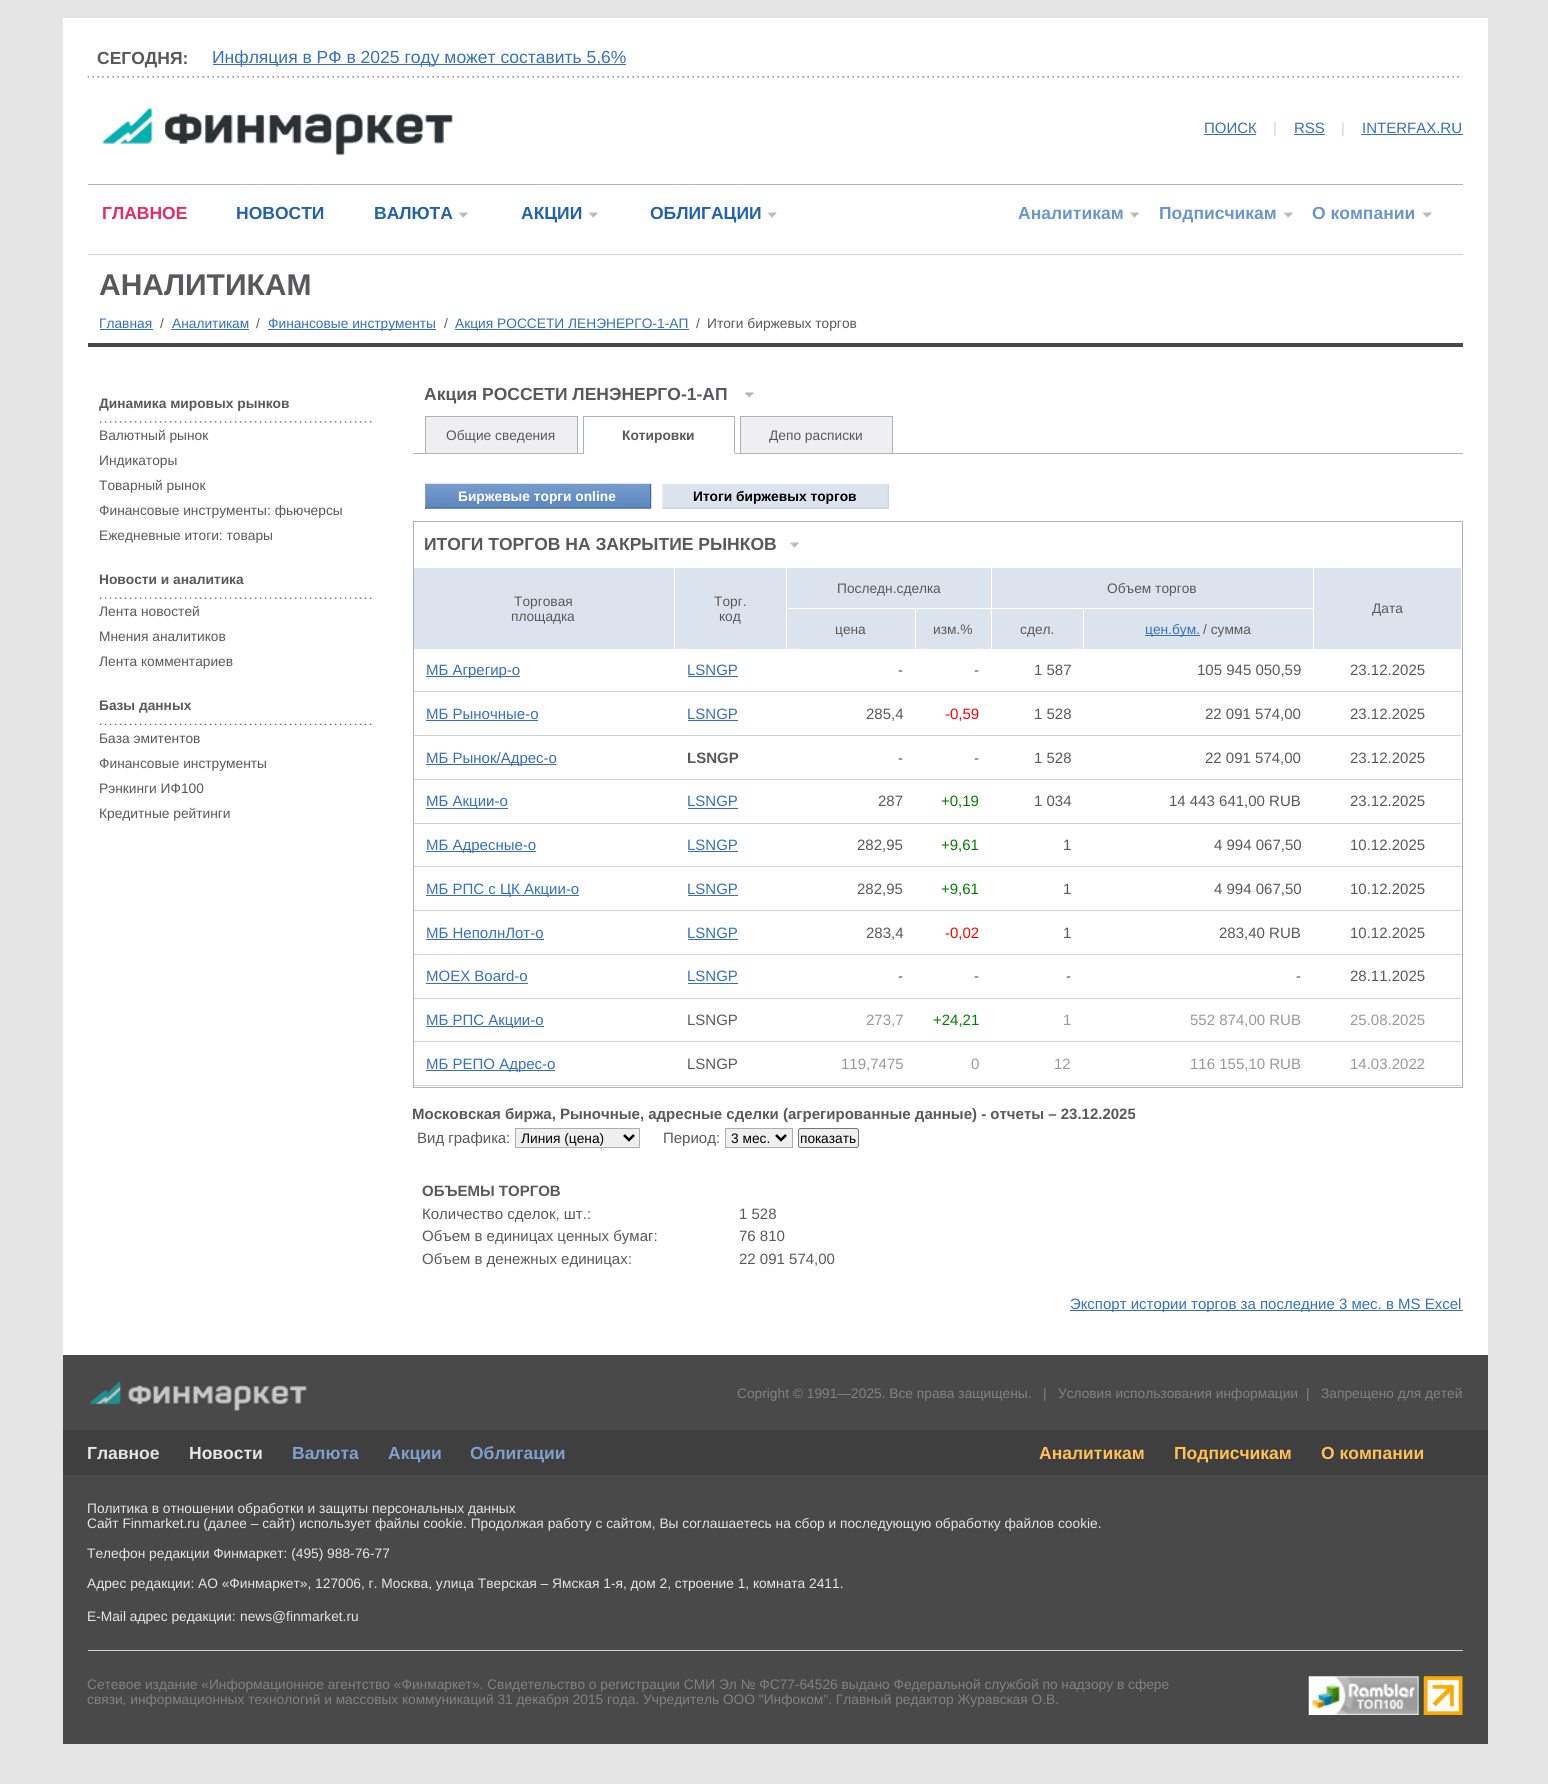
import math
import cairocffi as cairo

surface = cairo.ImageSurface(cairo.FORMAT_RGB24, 1548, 1784)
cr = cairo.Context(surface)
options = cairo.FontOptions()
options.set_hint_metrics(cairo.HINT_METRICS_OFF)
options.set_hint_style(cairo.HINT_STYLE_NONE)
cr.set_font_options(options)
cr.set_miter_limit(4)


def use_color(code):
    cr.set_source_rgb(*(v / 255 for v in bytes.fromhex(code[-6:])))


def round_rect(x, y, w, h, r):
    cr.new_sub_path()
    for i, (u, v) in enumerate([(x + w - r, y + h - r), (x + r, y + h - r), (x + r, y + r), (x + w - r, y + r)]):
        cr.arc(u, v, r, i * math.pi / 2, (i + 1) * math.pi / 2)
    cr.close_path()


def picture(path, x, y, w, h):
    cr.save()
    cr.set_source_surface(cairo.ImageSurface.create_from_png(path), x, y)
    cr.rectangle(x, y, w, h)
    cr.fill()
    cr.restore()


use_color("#e5e5e5")
cr.paint()
use_color("#ffffff")
cr.rectangle(63, 18, 1425, 1337)
cr.fill()
cr.select_font_face("Liberation Sans", cairo.FONT_SLANT_NORMAL, cairo.FONT_WEIGHT_BOLD)
cr.set_font_size(17.5)
use_color("#59595c")
cr.move_to(97, 64)
cr.show_text("СЕГОДНЯ:")
use_color("#3570bc")
cr.rectangle(213, 64, 413, 1)
cr.fill()
cr.select_font_face("Liberation Sans")
cr.move_to(212, 63)
cr.show_text("Инфляция в РФ в 2025 году может составить 5,6%")
picture("img1.png", 87, 76, 1376, 2)
picture("img2.png", 102, 107, 351, 48)
cr.set_font_size(15)
cr.move_to(1204, 133)
cr.show_text("ПОИСК")
cr.rectangle(1204, 134, 52, 1)
cr.fill()
use_color("#d2d2d2")
cr.move_to(1273, 133)
cr.show_text("|")
use_color("#3570bc")
cr.move_to(1294, 133)
cr.show_text("RSS")
cr.rectangle(1294, 134, 31, 1)
cr.fill()
use_color("#d2d2d2")
cr.move_to(1341, 133)
cr.show_text("|")
use_color("#3570bc")
cr.move_to(1362, 133)
cr.show_text("INTERFAX.RU")
cr.rectangle(1361, 134, 102, 1)
cr.fill()
use_color("#adb2bb")
cr.rectangle(88, 184, 1375, 1)
cr.fill()
cr.select_font_face("Liberation Sans", cairo.FONT_SLANT_NORMAL, cairo.FONT_WEIGHT_BOLD)
cr.set_font_size(17.5)
use_color("#e62b66")
cr.move_to(102, 219)
cr.show_text("ГЛАВНОЕ")
use_color("#2262ac")
cr.move_to(236, 219)
cr.show_text("НОВОСТИ")
cr.move_to(374, 219)
cr.show_text("ВАЛЮТА")
picture("img3.png", 458, 212, 10, 6)
cr.move_to(521, 219)
cr.show_text("АКЦИИ")
picture("img3.png", 588, 212, 10, 6)
cr.move_to(650, 219)
cr.show_text("ОБЛИГАЦИИ")
picture("img4.png", 767, 212, 10, 6)
use_color("#6a96c9")
cr.move_to(1018, 219)
cr.show_text("Аналитикам")
picture("img5.png", 1130, 212, 9, 6)
cr.move_to(1159, 219)
cr.show_text("Подписчикам")
picture("img3.png", 1283, 212, 10, 6)
cr.move_to(1312, 219)
cr.show_text("О компании")
picture("img6.png", 1422, 212, 10, 6)
use_color("#d2d2d2")
cr.rectangle(88, 254, 1375, 1)
cr.fill()
cr.set_font_size(30)
use_color("#59595c")
cr.move_to(99, 295)
cr.show_text("АНАЛИТИКАМ")
cr.select_font_face("Liberation Sans")
cr.set_font_size(13.75)
use_color("#3570bc")
cr.move_to(99, 328)
cr.show_text("Главная")
cr.rectangle(100, 329, 53, 1)
cr.fill()
use_color("#59595c")
cr.move_to(160, 328)
cr.show_text("/")
use_color("#3570bc")
cr.move_to(172, 328)
cr.show_text("Аналитикам")
cr.rectangle(171, 329, 78, 1)
cr.fill()
use_color("#59595c")
cr.move_to(256, 328)
cr.show_text("/")
use_color("#3570bc")
cr.rectangle(268, 329, 168, 1)
cr.fill()
cr.move_to(268, 328)
cr.show_text("Финансовые инструменты")
use_color("#59595c")
cr.move_to(444, 328)
cr.show_text("/")
use_color("#3570bc")
cr.rectangle(455, 329, 234, 1)
cr.fill()
cr.move_to(455, 328)
cr.show_text("Акция РОССЕТИ ЛЕНЭНЕРГО-1-АП")
use_color("#59595c")
cr.move_to(696, 328)
cr.show_text("/")
cr.move_to(707, 328)
cr.show_text("Итоги биржевых торгов")
use_color("#494949")
cr.rectangle(88, 343, 1375, 4)
cr.fill()
cr.select_font_face("Liberation Sans", cairo.FONT_SLANT_NORMAL, cairo.FONT_WEIGHT_BOLD)
use_color("#59595c")
cr.move_to(99, 408)
cr.show_text("Динамика мировых рынков")
picture("img7.png", 100, 421, 275, 2)
cr.select_font_face("Liberation Sans")
cr.move_to(99, 440)
cr.show_text("Валютный рынок")
cr.move_to(99, 465)
cr.show_text("Индикаторы")
cr.move_to(99, 490)
cr.show_text("Товарный рынок")
cr.move_to(99, 515)
cr.show_text("Финансовые инструменты: фьючерсы")
cr.move_to(99, 540)
cr.show_text("Ежедневные итоги: товары")
cr.select_font_face("Liberation Sans", cairo.FONT_SLANT_NORMAL, cairo.FONT_WEIGHT_BOLD)
cr.move_to(99, 584)
cr.show_text("Новости и аналитика")
picture("img8.png", 100, 597, 275, 2)
cr.select_font_face("Liberation Sans")
cr.move_to(99, 616)
cr.show_text("Лента новостей")
cr.move_to(99, 641)
cr.show_text("Мнения аналитиков")
cr.move_to(99, 666)
cr.show_text("Лента комментариев")
cr.select_font_face("Liberation Sans", cairo.FONT_SLANT_NORMAL, cairo.FONT_WEIGHT_BOLD)
cr.move_to(99, 710)
cr.show_text("Базы данных")
picture("img9.png", 100, 723, 275, 2)
cr.select_font_face("Liberation Sans")
cr.move_to(99, 743)
cr.show_text("База эмитентов")
cr.move_to(99, 768)
cr.show_text("Финансовые инструменты")
cr.move_to(99, 793)
cr.show_text("Рэнкинги ИФ100")
cr.move_to(99, 818)
cr.show_text("Кредитные рейтинги")
cr.select_font_face("Liberation Sans", cairo.FONT_SLANT_NORMAL, cairo.FONT_WEIGHT_BOLD)
cr.set_font_size(17.5)
cr.move_to(424, 400)
cr.show_text("Акция РОССЕТИ ЛЕНЭНЕРГО-1-АП")
picture("img10.png", 745, 392, 9, 6)
use_color("#adb2bb")
cr.rectangle(413, 453, 1050, 1)
cr.fill()
use_color("#efeff1")
cr.rectangle(425.5, 416.5, 152, 37)
cr.fill_preserve()
use_color("#adb2bb")
cr.set_line_width(1)
cr.stroke()
cr.select_font_face("Liberation Sans")
cr.set_font_size(13.75)
use_color("#59595c")
cr.move_to(446, 440)
cr.show_text("Общие сведения")
use_color("#adb2bb")
cr.rectangle(583, 416, 152, 1)
cr.fill()
cr.rectangle(734, 416, 1, 38)
cr.fill()
use_color("#ffffff")
cr.rectangle(583, 453, 152, 1)
cr.fill()
use_color("#adb2bb")
cr.rectangle(583, 416, 1, 38)
cr.fill()
cr.select_font_face("Liberation Sans", cairo.FONT_SLANT_NORMAL, cairo.FONT_WEIGHT_BOLD)
use_color("#59595c")
cr.move_to(622, 440)
cr.show_text("Котировки")
use_color("#efeff1")
cr.rectangle(740.5, 416.5, 152, 37)
cr.fill_preserve()
use_color("#adb2bb")
cr.stroke()
cr.select_font_face("Liberation Sans")
use_color("#59595c")
cr.move_to(769, 440)
cr.show_text("Депо расписки")
picture("img11.png", 425, 483, 225, 26)
picture("img12.png", 425, 483, 2, 26)
cr.select_font_face("Liberation Sans", cairo.FONT_SLANT_NORMAL, cairo.FONT_WEIGHT_BOLD)
use_color("#ffffff")
cr.move_to(458, 501)
cr.show_text("Биржевые торги online")
picture("img13.png", 650, 483, 2, 26)
picture("img14.png", 662, 483, 226, 26)
picture("img15.png", 662, 483, 2, 26)
use_color("#000000")
cr.move_to(693, 501)
cr.show_text("Итоги биржевых торгов")
picture("img16.png", 887, 483, 2, 26)
cr.rectangle(413.5, 521.5, 1049, 566)
use_color("#adb2bb")
cr.stroke()
cr.set_font_size(17.5)
use_color("#59595c")
cr.move_to(424, 550)
cr.show_text("ИТОГИ ТОРГОВ НА ЗАКРЫТИЕ РЫНКОВ")
picture("img17.png", 790, 542, 9, 6)
use_color("#dbe4ed")
cr.rectangle(788, 568, 525, 40)
cr.fill()
use_color("#ffffff")
cr.rectangle(991, 568, 1, 40)
cr.fill()
cr.select_font_face("Liberation Sans")
cr.set_font_size(13.75)
use_color("#59595c")
cr.move_to(837, 593)
cr.show_text("Последн.сделка")
cr.move_to(1107, 593)
cr.show_text("Объем торгов")
use_color("#dbe4ed")
cr.rectangle(414, 568, 260, 81)
cr.fill()
use_color("#59595c")
cr.move_to(514, 606)
cr.show_text("Торговая")
cr.move_to(511, 621)
cr.show_text("площадка")
use_color("#dbe4ed")
cr.rectangle(675, 568, 113, 81)
cr.fill()
use_color("#ffffff")
cr.rectangle(786, 568, 1, 81)
cr.fill()
use_color("#59595c")
cr.move_to(714, 606)
cr.show_text("Торг.")
cr.move_to(719, 621)
cr.show_text("код")
use_color("#dbe4ed")
cr.rectangle(1314, 568, 147, 81)
cr.fill()
use_color("#59595c")
cr.move_to(1372, 613)
cr.show_text("Дата")
use_color("#dbe4ed")
cr.rectangle(788, 609, 127, 40)
cr.fill()
use_color("#59595c")
cr.move_to(835, 634)
cr.show_text("цена")
use_color("#dbe4ed")
cr.rectangle(916, 609, 167, 40)
cr.fill()
use_color("#ffffff")
cr.rectangle(991, 608, 1, 41)
cr.fill()
use_color("#59595c")
cr.move_to(933, 634)
cr.show_text("изм.%")
cr.move_to(1020, 634)
cr.show_text("сдел.")
use_color("#dbe4ed")
cr.rectangle(1084, 609, 229, 40)
cr.fill()
use_color("#3570bc")
cr.rectangle(1145, 635, 55, 1)
cr.fill()
cr.move_to(1145, 634)
cr.show_text("цен.бум.")
use_color("#59595c")
cr.move_to(1203, 634)
cr.show_text("/ сумма")
use_color("#d2d2d2")
cr.rectangle(414, 691, 1047, 1)
cr.fill()
use_color("#3570bc")
cr.rectangle(426, 676, 94, 1)
cr.fill()
cr.set_font_size(15)
cr.move_to(426, 675)
cr.show_text("МБ Агрегир-о")
cr.move_to(687, 675)
cr.show_text("LSNGP")
cr.rectangle(688, 676, 50, 1)
cr.fill()
use_color("#59595c")
cr.move_to(898, 675)
cr.show_text("-")
cr.move_to(974, 675)
cr.show_text("-")
cr.move_to(1034, 675)
cr.show_text("1 587")
cr.move_to(1197, 675)
cr.show_text("105 945 050,59")
cr.move_to(1350, 675)
cr.show_text("23.12.2025")
use_color("#d2d2d2")
cr.rectangle(414, 735, 1047, 1)
cr.fill()
use_color("#3570bc")
cr.move_to(426, 719)
cr.show_text("МБ Рыночные-о")
cr.rectangle(426, 720, 112, 1)
cr.fill()
cr.move_to(687, 719)
cr.show_text("LSNGP")
cr.rectangle(688, 720, 50, 1)
cr.fill()
use_color("#59595c")
cr.move_to(866, 719)
cr.show_text("285,4")
use_color("#ff0000")
cr.move_to(945, 719)
cr.show_text("-0,59")
use_color("#59595c")
cr.move_to(1034, 719)
cr.show_text("1 528")
cr.move_to(1205, 719)
cr.show_text("22 091 574,00")
cr.move_to(1350, 719)
cr.show_text("23.12.2025")
use_color("#d2d2d2")
cr.rectangle(414, 779, 1047, 1)
cr.fill()
use_color("#3570bc")
cr.rectangle(426, 764, 130, 1)
cr.fill()
cr.move_to(426, 763)
cr.show_text("МБ Рынок/Адрес-о")
cr.select_font_face("Liberation Sans", cairo.FONT_SLANT_NORMAL, cairo.FONT_WEIGHT_BOLD)
use_color("#59595c")
cr.move_to(687, 763)
cr.show_text("LSNGP")
cr.select_font_face("Liberation Sans")
cr.move_to(898, 763)
cr.show_text("-")
cr.move_to(974, 763)
cr.show_text("-")
cr.move_to(1034, 763)
cr.show_text("1 528")
cr.move_to(1205, 763)
cr.show_text("22 091 574,00")
cr.move_to(1350, 763)
cr.show_text("23.12.2025")
use_color("#d2d2d2")
cr.rectangle(414, 823, 1047, 1)
cr.fill()
use_color("#3570bc")
cr.rectangle(426, 808, 82, 1)
cr.fill()
cr.move_to(426, 806)
cr.show_text("МБ Акции-о")
cr.move_to(687, 806)
cr.show_text("LSNGP")
cr.rectangle(688, 808, 50, 1)
cr.fill()
use_color("#59595c")
cr.move_to(878, 806)
cr.show_text("287")
use_color("#008000")
cr.move_to(941, 806)
cr.show_text("+0,19")
use_color("#59595c")
cr.move_to(1034, 806)
cr.show_text("1 034")
cr.move_to(1169, 806)
cr.show_text("14 443 641,00 RUB")
cr.move_to(1350, 806)
cr.show_text("23.12.2025")
use_color("#d2d2d2")
cr.rectangle(414, 866, 1047, 1)
cr.fill()
use_color("#3570bc")
cr.rectangle(426, 851, 110, 1)
cr.fill()
cr.move_to(426, 850)
cr.show_text("МБ Адресные-о")
cr.move_to(687, 850)
cr.show_text("LSNGP")
cr.rectangle(688, 851, 50, 1)
cr.fill()
use_color("#59595c")
cr.move_to(857, 850)
cr.show_text("282,95")
use_color("#008000")
cr.move_to(941, 850)
cr.show_text("+9,61")
use_color("#59595c")
cr.move_to(1063, 850)
cr.show_text("1")
cr.move_to(1214, 850)
cr.show_text("4 994 067,50")
cr.move_to(1350, 850)
cr.show_text("10.12.2025")
use_color("#d2d2d2")
cr.rectangle(414, 910, 1047, 1)
cr.fill()
use_color("#3570bc")
cr.rectangle(426, 895, 153, 1)
cr.fill()
cr.move_to(426, 894)
cr.show_text("МБ РПС с ЦК Акции-о")
cr.move_to(687, 894)
cr.show_text("LSNGP")
cr.rectangle(688, 895, 50, 1)
cr.fill()
use_color("#59595c")
cr.move_to(857, 894)
cr.show_text("282,95")
use_color("#008000")
cr.move_to(941, 894)
cr.show_text("+9,61")
use_color("#59595c")
cr.move_to(1063, 894)
cr.show_text("1")
cr.move_to(1214, 894)
cr.show_text("4 994 067,50")
cr.move_to(1350, 894)
cr.show_text("10.12.2025")
use_color("#d2d2d2")
cr.rectangle(414, 954, 1047, 1)
cr.fill()
use_color("#3570bc")
cr.move_to(426, 938)
cr.show_text("МБ НеполнЛот-о")
cr.rectangle(426, 939, 118, 1)
cr.fill()
cr.move_to(687, 938)
cr.show_text("LSNGP")
cr.rectangle(688, 939, 50, 1)
cr.fill()
use_color("#59595c")
cr.move_to(866, 938)
cr.show_text("283,4")
use_color("#ff0000")
cr.move_to(945, 938)
cr.show_text("-0,02")
use_color("#59595c")
cr.move_to(1063, 938)
cr.show_text("1")
cr.move_to(1219, 938)
cr.show_text("283,40 RUB")
cr.move_to(1350, 938)
cr.show_text("10.12.2025")
use_color("#d2d2d2")
cr.rectangle(414, 998, 1047, 1)
cr.fill()
use_color("#3570bc")
cr.move_to(426, 981)
cr.show_text("MOEX Board-о")
cr.rectangle(426, 983, 102, 1)
cr.fill()
cr.move_to(687, 981)
cr.show_text("LSNGP")
cr.rectangle(688, 983, 50, 1)
cr.fill()
use_color("#59595c")
cr.move_to(898, 981)
cr.show_text("-")
cr.move_to(974, 981)
cr.show_text("-")
cr.move_to(1066, 981)
cr.show_text("-")
cr.move_to(1296, 981)
cr.show_text("-")
cr.move_to(1350, 981)
cr.show_text("28.11.2025")
use_color("#d2d2d2")
cr.rectangle(414, 1041, 1047, 1)
cr.fill()
use_color("#3570bc")
cr.rectangle(426, 1026, 118, 1)
cr.fill()
cr.move_to(426, 1025)
cr.show_text("МБ РПС Акции-о")
use_color("#59595c")
cr.move_to(687, 1025)
cr.show_text("LSNGP")
use_color("#999999")
cr.move_to(866, 1025)
cr.show_text("273,7")
use_color("#008000")
cr.move_to(933, 1025)
cr.show_text("+24,21")
use_color("#999999")
cr.move_to(1063, 1025)
cr.show_text("1")
cr.move_to(1190, 1025)
cr.show_text("552 874,00 RUB")
cr.move_to(1350, 1025)
cr.show_text("25.08.2025")
use_color("#d2d2d2")
cr.rectangle(414, 1085, 1047, 1)
cr.fill()
use_color("#3570bc")
cr.rectangle(426, 1070, 129, 1)
cr.fill()
cr.move_to(426, 1069)
cr.show_text("МБ РЕПО Адрес-о")
use_color("#59595c")
cr.move_to(687, 1069)
cr.show_text("LSNGP")
use_color("#999999")
cr.move_to(841, 1069)
cr.show_text("119,7475")
cr.move_to(971, 1069)
cr.show_text("0")
cr.move_to(1054, 1069)
cr.show_text("12")
cr.move_to(1190, 1069)
cr.show_text("116 155,10 RUB")
cr.move_to(1350, 1069)
cr.show_text("14.03.2022")
cr.save()
cr.rectangle(413, 371, 1050, 959)
cr.clip()
cr.select_font_face("Liberation Sans", cairo.FONT_SLANT_NORMAL, cairo.FONT_WEIGHT_BOLD)
use_color("#59595c")
cr.move_to(412, 1119)
cr.show_text("Московская биржа, Рыночные, адресные сделки (агрегированные данные) - отчеты – 23.12.2025")
cr.restore()
use_color("#59595c")
cr.move_to(417, 1143)
cr.show_text("Вид графика:")
use_color("#efefef")
cr.rectangle(515.5, 1128.5, 124, 19)
cr.fill_preserve()
use_color("#abadb3")
cr.stroke()
cr.new_path()
cr.move_to(624, 1135)
cr.line_to(629, 1140)
cr.line_to(634, 1135)
use_color("#000000")
cr.set_line_width(2.5)
cr.stroke()
cr.set_font_size(13.75)
cr.move_to(521, 1143)
cr.show_text("Линия (цена)")
cr.set_font_size(15)
use_color("#59595c")
cr.move_to(663, 1143)
cr.show_text("Период:")
use_color("#efefef")
cr.rectangle(725.5, 1128.5, 67, 19)
cr.fill_preserve()
use_color("#abadb3")
cr.set_line_width(1)
cr.stroke()
cr.new_path()
cr.move_to(776, 1135)
cr.line_to(781, 1140)
cr.line_to(786, 1135)
use_color("#000000")
cr.set_line_width(2.5)
cr.stroke()
cr.set_font_size(13.75)
cr.move_to(731, 1143)
cr.show_text("3 мес.")
use_color("#efefef")
round_rect(798.5, 1128.5, 60, 19, 2)
cr.fill_preserve()
use_color("#767676")
cr.set_line_width(1)
cr.stroke()
use_color("#000000")
cr.move_to(800, 1143)
cr.show_text("показать")
cr.select_font_face("Liberation Sans", cairo.FONT_SLANT_NORMAL, cairo.FONT_WEIGHT_BOLD)
cr.set_font_size(15)
use_color("#59595c")
cr.move_to(422, 1196)
cr.show_text("ОБЪЕМЫ ТОРГОВ")
cr.select_font_face("Liberation Sans")
cr.move_to(422, 1219)
cr.show_text("Количество сделок, шт.:")
cr.move_to(739, 1219)
cr.show_text("1 528")
cr.move_to(422, 1241)
cr.show_text("Объем в единицах ценных бумаг:")
cr.move_to(739, 1241)
cr.show_text("76 810")
cr.move_to(422, 1264)
cr.show_text("Объем в денежных единицах:")
cr.move_to(739, 1264)
cr.show_text("22 091 574,00")
use_color("#3570bc")
cr.rectangle(1070, 1310, 393, 1)
cr.fill()
cr.move_to(1070, 1309)
cr.show_text("Экспорт истории торгов за последние 3 мес. в MS Excel")
use_color("#494949")
cr.rectangle(63, 1355, 1425, 389)
cr.fill()
picture("img18.png", 90, 1381, 217, 31)
cr.set_font_size(13.75)
use_color("#818181")
cr.move_to(737, 1398)
cr.show_text("Copright © 1991—2025. Все права защищены.   |")
cr.move_to(1058, 1398)
cr.show_text("Условия использования информации")
cr.move_to(1306, 1398)
cr.show_text("|")
cr.move_to(1321, 1398)
cr.show_text("Запрещено для детей")
use_color("#3f3f3f")
cr.rectangle(63, 1430, 1425, 45)
cr.fill()
cr.select_font_face("Liberation Sans", cairo.FONT_SLANT_NORMAL, cairo.FONT_WEIGHT_BOLD)
cr.set_font_size(17.5)
use_color("#e5e5e5")
cr.move_to(87, 1459)
cr.show_text("Главное")
cr.move_to(189, 1459)
cr.show_text("Новости")
use_color("#7ea0cc")
cr.move_to(292, 1459)
cr.show_text("Валюта")
cr.move_to(388, 1459)
cr.show_text("Акции")
cr.move_to(470, 1459)
cr.show_text("Облигации")
use_color("#ffc155")
cr.move_to(1039, 1459)
cr.show_text("Аналитикам")
cr.move_to(1174, 1459)
cr.show_text("Подписчикам")
cr.move_to(1321, 1459)
cr.show_text("О компании")
cr.select_font_face("Liberation Sans")
cr.set_font_size(13.75)
use_color("#e5e5e5")
cr.move_to(87, 1513)
cr.show_text("Политика в отношении обработки и защиты персональных данных")
cr.move_to(87, 1528)
cr.show_text("Сайт Finmarket.ru (далее – сайт) использует файлы cookie. Продолжая работу с сайтом, Вы соглашаетесь на сбор и последующую обработку файлов cookie.")
cr.move_to(87, 1558)
cr.show_text("Телефон редакции Финмаркет: (495) 988-76-77")
cr.move_to(87, 1588)
cr.show_text("Адрес редакции: АО «Финмаркет», 127006, г. Москва, улица Тверская – Ямская 1-я, дом 2, строение 1, комната 2411.")
cr.move_to(87, 1621)
cr.show_text("E-Mail адрес редакции:")
cr.move_to(240, 1621)
cr.show_text("news@finmarket.ru")
use_color("#d2d2d2")
cr.rectangle(88, 1650, 1375, 1)
cr.fill()
use_color("#818181")
cr.move_to(87, 1689)
cr.show_text("Сетевое издание «Информационное агентство «Финмаркет». Свидетельство о регистрации СМИ Эл № ФС77-64526 выдано Федеральной службой по надзору в сфере")
cr.move_to(87, 1704)
cr.show_text("связи, информационных технологий и массовых коммуникаций 31 декабря 2015 года. Учредитель ООО \"Инфоком\". Главный редактор Журавская О.В.")
picture("img19.png", 1308, 1676, 111, 39)
picture("img20.png", 1423, 1676, 40, 39)
surface.write_to_png("result.png")
